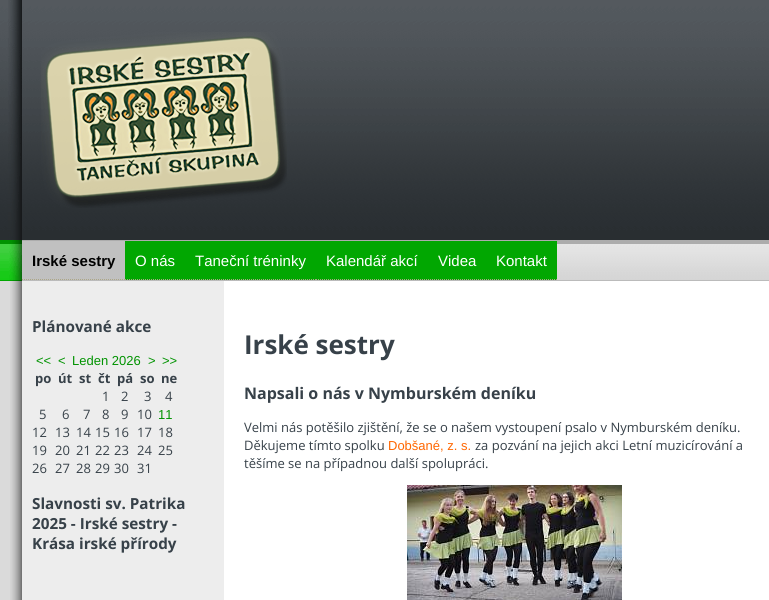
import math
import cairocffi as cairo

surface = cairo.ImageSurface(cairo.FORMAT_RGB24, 769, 600)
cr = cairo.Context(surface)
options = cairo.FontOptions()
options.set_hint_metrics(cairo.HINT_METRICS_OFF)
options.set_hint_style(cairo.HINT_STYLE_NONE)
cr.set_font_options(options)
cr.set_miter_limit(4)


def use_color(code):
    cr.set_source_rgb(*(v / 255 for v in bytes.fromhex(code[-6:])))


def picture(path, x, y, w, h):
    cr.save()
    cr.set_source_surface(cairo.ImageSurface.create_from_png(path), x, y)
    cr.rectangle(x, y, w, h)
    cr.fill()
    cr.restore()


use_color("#dadada")
cr.paint()
picture("img1.png", 0, 0, 769, 281)
picture("img2.png", 8, 0, 14, 240)
picture("img3.png", 41, 32, 246, 176)
picture("img4.png", 9, 240, 13, 41)
picture("img5.png", 22, 240, 747, 41)
use_color("#c0c0c0")
cr.rectangle(22, 241, 103, 39)
cr.fill()
cr.new_path()
cr.move_to(22, 279.5)
cr.line_to(125, 279.5)
use_color("#aca686")
cr.set_line_width(1)
cr.set_dash([1, 1])
cr.stroke()
cr.select_font_face("Liberation Sans", cairo.FONT_SLANT_NORMAL, cairo.FONT_WEIGHT_BOLD)
cr.set_font_size(15)
use_color("#000000")
cr.move_to(32, 266)
cr.show_text("Irské sestry")
use_color("#01a701")
cr.rectangle(125, 241, 432, 39)
cr.fill()
cr.new_path()
cr.move_to(125, 279.5)
cr.line_to(185, 279.5)
use_color("#aca686")
cr.stroke()
cr.select_font_face("Liberation Sans")
use_color("#ffffff")
cr.move_to(135, 266)
cr.show_text("O nás")
cr.new_path()
cr.move_to(185, 279.5)
cr.line_to(316, 279.5)
use_color("#aca686")
cr.stroke()
use_color("#ffffff")
cr.move_to(195, 266)
cr.show_text("Taneční tréninky")
cr.new_path()
cr.move_to(316, 279.5)
cr.line_to(428, 279.5)
use_color("#aca686")
cr.stroke()
use_color("#ffffff")
cr.move_to(326, 266)
cr.show_text("Kalendář akcí")
cr.new_path()
cr.move_to(428, 279.5)
cr.line_to(486, 279.5)
use_color("#aca686")
cr.stroke()
use_color("#ffffff")
cr.move_to(438, 266)
cr.show_text("Videa")
cr.new_path()
cr.move_to(486, 279.5)
cr.line_to(557, 279.5)
use_color("#aca686")
cr.stroke()
use_color("#ffffff")
cr.move_to(496, 266)
cr.show_text("Kontakt")
picture("img6.png", 10, 281, 12, 319)
cr.rectangle(224, 281, 545, 319)
cr.fill()
use_color("#ededed")
cr.rectangle(22, 281, 202, 319)
cr.fill()
cr.select_font_face("Open Sans", cairo.FONT_SLANT_NORMAL, cairo.FONT_WEIGHT_BOLD)
cr.set_font_size(15.25)
use_color("#374149")
cr.move_to(32, 332)
cr.show_text("Plánované akce")
cr.select_font_face("Liberation Sans")
cr.set_font_size(13)
use_color("#019301")
cr.move_to(36, 365)
cr.show_text("<<")
cr.move_to(58, 365)
cr.show_text("<")
cr.move_to(72, 365)
cr.show_text("Leden 2026")
cr.move_to(148, 365)
cr.show_text(">")
cr.move_to(162, 365)
cr.show_text(">>")
cr.select_font_face("Open Sans", cairo.FONT_SLANT_NORMAL, cairo.FONT_WEIGHT_BOLD)
use_color("#374149")
cr.move_to(35, 383)
cr.show_text("po")
cr.move_to(58, 383)
cr.show_text("út")
cr.move_to(79, 383)
cr.show_text("st")
cr.move_to(98, 383)
cr.show_text("čt")
cr.move_to(117, 383)
cr.show_text("pá")
cr.move_to(140, 383)
cr.show_text("so")
cr.move_to(161, 383)
cr.show_text("ne")
cr.select_font_face("Open Sans")
cr.move_to(102, 401)
cr.show_text("1")
cr.move_to(121, 401)
cr.show_text("2")
cr.move_to(144, 401)
cr.show_text("3")
cr.move_to(165, 401)
cr.show_text("4")
cr.move_to(39, 419)
cr.show_text("5")
cr.move_to(62, 419)
cr.show_text("6")
cr.move_to(83, 419)
cr.show_text("7")
cr.move_to(102, 419)
cr.show_text("8")
cr.move_to(121, 419)
cr.show_text("9")
cr.move_to(137, 419)
cr.show_text("10")
cr.select_font_face("Liberation Sans")
use_color("#019301")
cr.move_to(158, 419)
cr.show_text("11")
cr.select_font_face("Open Sans")
use_color("#374149")
cr.move_to(32, 437)
cr.show_text("12")
cr.move_to(55, 437)
cr.show_text("13")
cr.move_to(76, 437)
cr.show_text("14")
cr.move_to(95, 437)
cr.show_text("15")
cr.move_to(114, 437)
cr.show_text("16")
cr.move_to(137, 437)
cr.show_text("17")
cr.move_to(158, 437)
cr.show_text("18")
cr.move_to(32, 455)
cr.show_text("19")
cr.move_to(55, 455)
cr.show_text("20")
cr.move_to(76, 455)
cr.show_text("21")
cr.move_to(95, 455)
cr.show_text("22")
cr.move_to(114, 455)
cr.show_text("23")
cr.move_to(137, 455)
cr.show_text("24")
cr.move_to(158, 455)
cr.show_text("25")
cr.move_to(32, 473)
cr.show_text("26")
cr.move_to(55, 473)
cr.show_text("27")
cr.move_to(76, 473)
cr.show_text("28")
cr.move_to(95, 473)
cr.show_text("29")
cr.move_to(114, 473)
cr.show_text("30")
cr.move_to(137, 473)
cr.show_text("31")
cr.select_font_face("Open Sans", cairo.FONT_SLANT_NORMAL, cairo.FONT_WEIGHT_BOLD)
cr.set_font_size(15.25)
cr.move_to(32, 509)
cr.show_text("Slavnosti sv. Patrika")
cr.move_to(32, 529)
cr.show_text("2025 - Irské sestry -")
cr.move_to(32, 549)
cr.show_text("Krása irské přírody")
cr.set_font_size(26)
cr.move_to(244, 354)
cr.show_text("Irské sestry")
cr.set_font_size(16)
cr.move_to(244, 399)
cr.show_text("Napsali o nás v Nymburském deníku")
cr.select_font_face("Open Sans")
cr.set_font_size(13)
cr.move_to(244, 432)
cr.show_text("Velmi nás potěšilo zjištění, že se o našem vystoupení psalo v Nymburském deníku.")
cr.move_to(244, 450)
cr.show_text("Děkujeme tímto spolku")
cr.select_font_face("Liberation Sans")
use_color("#ff6600")
cr.move_to(388, 450)
cr.show_text("Dobšané, z. s.")
cr.select_font_face("Open Sans")
use_color("#374149")
cr.move_to(475, 450)
cr.show_text("za pozvání na jejich akci Letní muzicírování a")
cr.move_to(244, 468)
cr.show_text("těšíme se na případnou další spolupráci.")
picture("img7.png", 407, 485, 215, 115)
surface.write_to_png("result.png")
